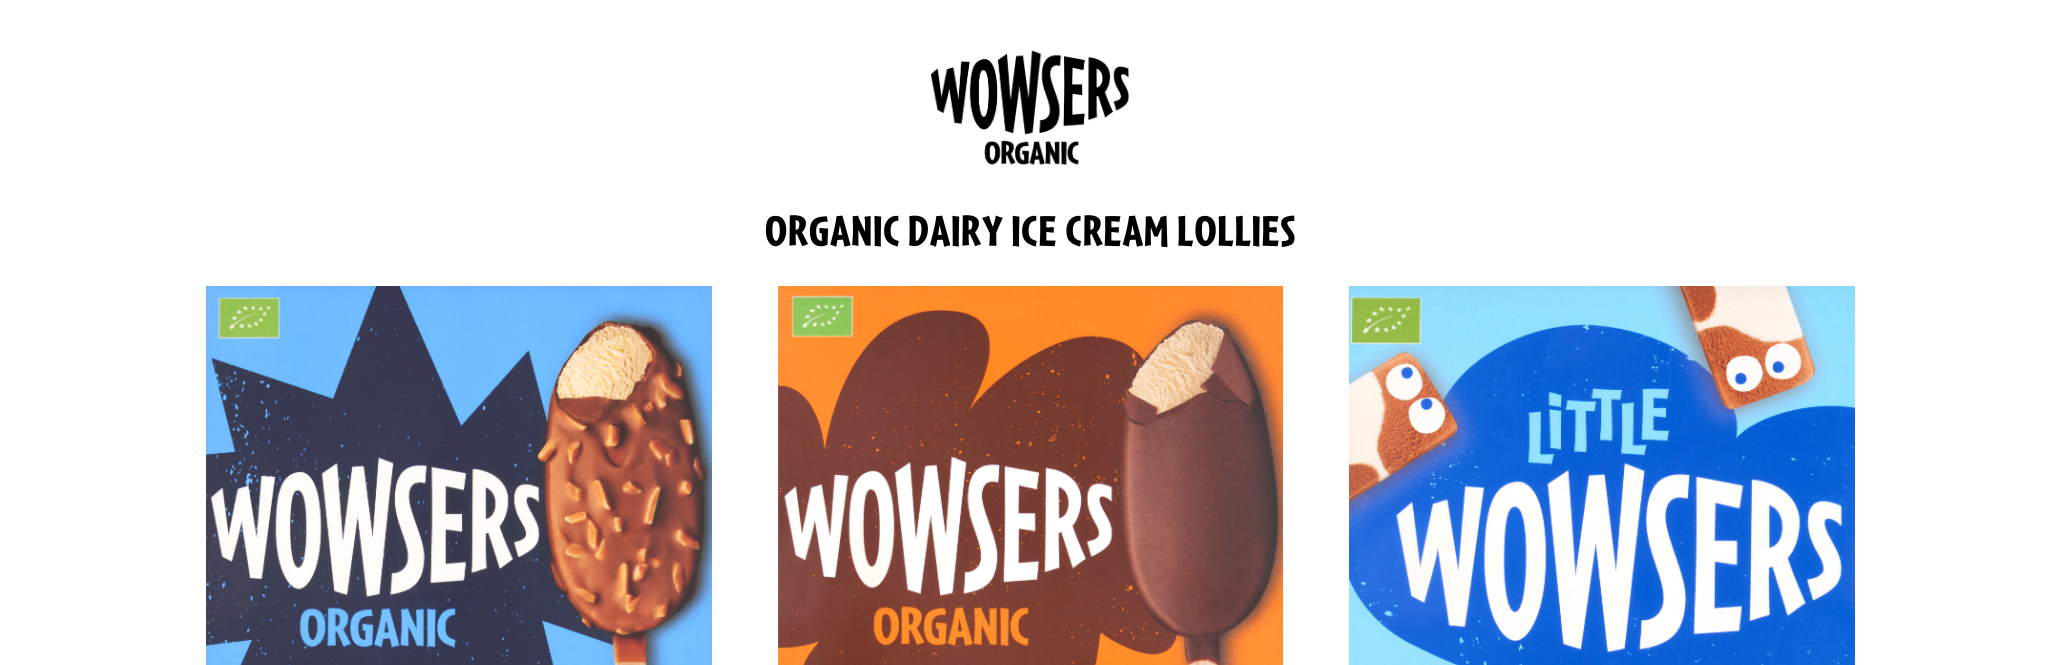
import math
import cairocffi as cairo

surface = cairo.ImageSurface(cairo.FORMAT_RGB24, 2061, 665)
cr = cairo.Context(surface)
options = cairo.FontOptions()
options.set_hint_metrics(cairo.HINT_METRICS_OFF)
options.set_hint_style(cairo.HINT_STYLE_NONE)
cr.set_font_options(options)
cr.set_miter_limit(4)


def use_color(code):
    cr.set_source_rgb(*(v / 255 for v in bytes.fromhex(code[-6:])))


def spaced_text(x, y, s, letter, word):
    cr.move_to(x, y)
    for ch in s:
        cr.show_text(ch)
        cr.rel_move_to(letter + word * (ch == ' '), 0)


def picture(path, x, y, w, h):
    cr.save()
    cr.set_source_surface(cairo.ImageSurface.create_from_png(path), x, y)
    cr.rectangle(x, y, w, h)
    cr.fill()
    cr.restore()


use_color("#ffffff")
cr.paint()
picture("img1.png", 930, 50, 200, 115)
cr.select_font_face("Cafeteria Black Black")
cr.set_font_size(45)
use_color("#000000")
spaced_text(765, 246, "ORGANIC DAIRY ICE CREAM LOLLIES", 1, 0)
picture("img2.png", 206, 286, 506, 379)
picture("img3.png", 778, 286, 505, 379)
picture("img4.png", 1349, 286, 506, 379)
surface.write_to_png("result.png")
